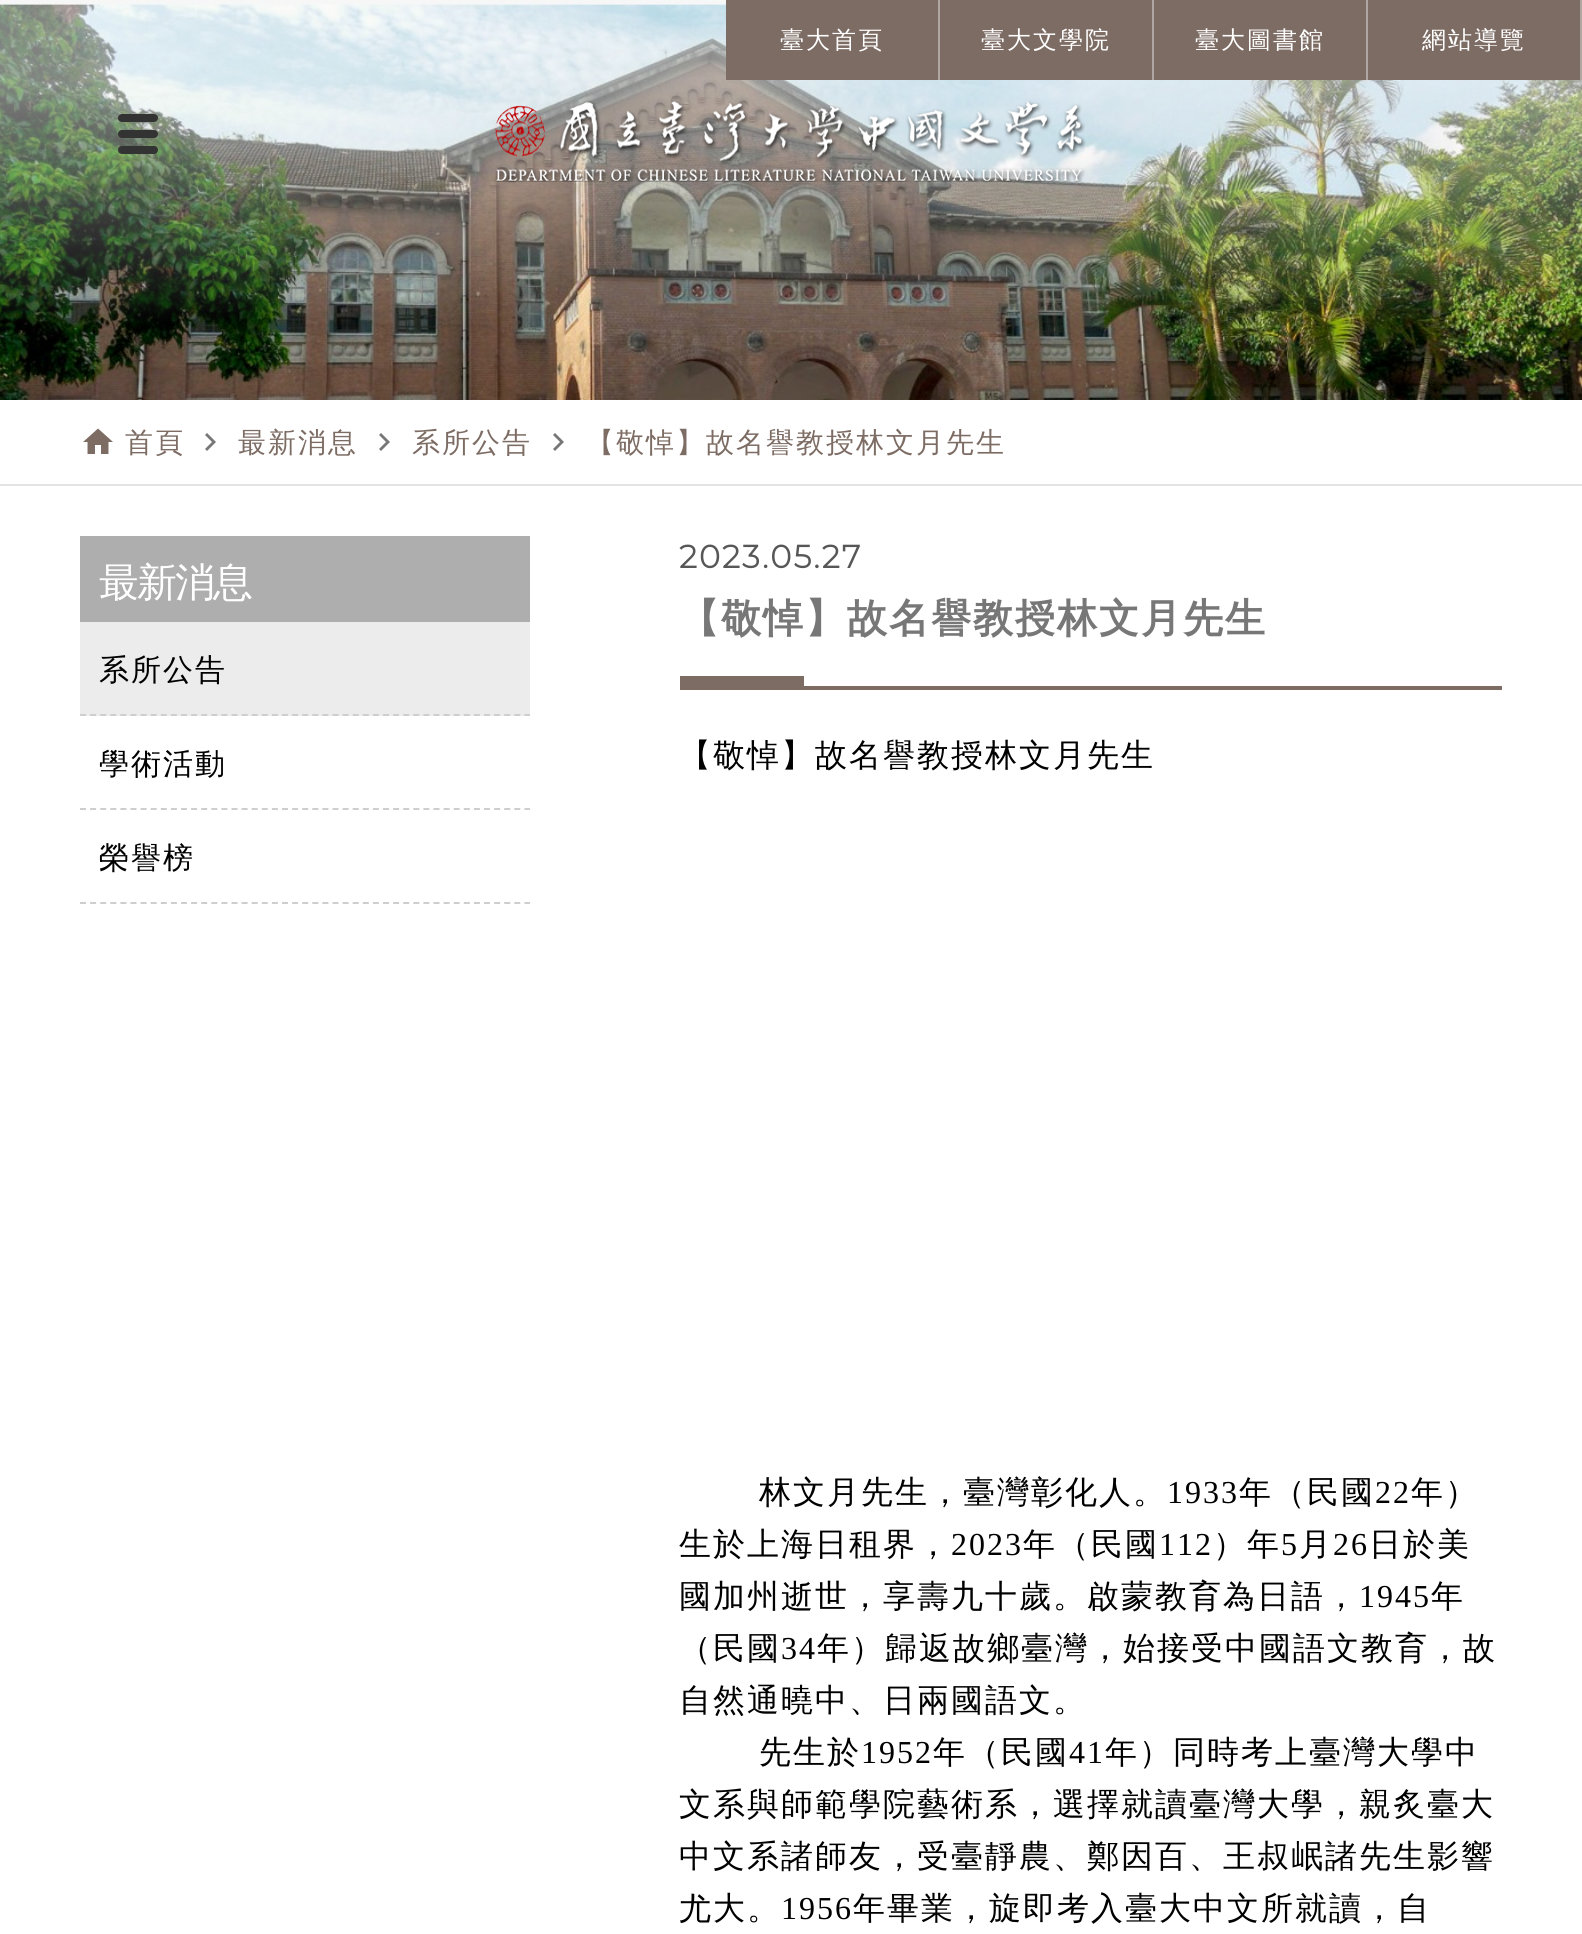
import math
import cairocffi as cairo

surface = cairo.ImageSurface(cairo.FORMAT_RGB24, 1582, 1934)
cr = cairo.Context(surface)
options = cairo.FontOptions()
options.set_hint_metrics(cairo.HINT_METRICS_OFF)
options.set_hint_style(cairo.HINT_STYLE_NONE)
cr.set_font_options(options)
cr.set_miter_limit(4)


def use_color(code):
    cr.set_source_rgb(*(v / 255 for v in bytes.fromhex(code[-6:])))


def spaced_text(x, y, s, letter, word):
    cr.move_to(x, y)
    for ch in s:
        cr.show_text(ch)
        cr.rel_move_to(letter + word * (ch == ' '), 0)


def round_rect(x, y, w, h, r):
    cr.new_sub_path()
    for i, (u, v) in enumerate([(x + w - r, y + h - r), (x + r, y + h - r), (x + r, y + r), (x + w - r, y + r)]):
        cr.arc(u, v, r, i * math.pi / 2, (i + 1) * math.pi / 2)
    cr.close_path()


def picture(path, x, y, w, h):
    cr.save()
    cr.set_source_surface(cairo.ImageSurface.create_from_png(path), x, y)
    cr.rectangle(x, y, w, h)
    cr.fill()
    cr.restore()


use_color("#ffffff")
cr.paint()
picture("img2.png", 0, 0, 1582, 400)
use_color("#7d6c64")
cr.rectangle(726, 0, 212, 80)
cr.fill()
use_color("#b1a7a2")
cr.rectangle(938, 0, 2, 80)
cr.fill()
cr.select_font_face("WenQuanYi Zen Hei Medium")
cr.set_font_size(24)
use_color("#ffffff")
spaced_text(780, 48, "臺大首頁", 2, 0)
use_color("#7d6c64")
cr.rectangle(940, 0, 212, 80)
cr.fill()
use_color("#b1a7a2")
cr.rectangle(1152, 0, 2, 80)
cr.fill()
use_color("#ffffff")
spaced_text(981, 48, "臺大文學院", 2, 0)
use_color("#7d6c64")
cr.rectangle(1154, 0, 212, 80)
cr.fill()
use_color("#b1a7a2")
cr.rectangle(1366, 0, 2, 80)
cr.fill()
use_color("#ffffff")
spaced_text(1195, 48, "臺大圖書館", 2, 0)
use_color("#7d6c64")
cr.rectangle(1368, 0, 212, 80)
cr.fill()
use_color("#b1a7a2")
cr.rectangle(1580, 0, 2, 80)
cr.fill()
use_color("#ffffff")
spaced_text(1422, 48, "網站導覽", 2, 0)
use_color("#333333")
round_rect(118, 114, 40, 8, 4)
cr.fill()
round_rect(118, 130, 40, 8, 4)
cr.fill()
round_rect(118, 146, 40, 8, 4)
cr.fill()
picture("img1.png", 495, 100, 591, 82)
use_color("#e3e3e3")
cr.rectangle(0, 484, 1582, 2)
cr.fill()
picture("img3.png", 83, 428, 30, 26)
cr.set_font_size(28)
use_color("#7d6c64")
spaced_text(125, 452, "首頁", 2, 0)
use_color("#777777")
cr.new_path()
cr.move_to(207, 433)
cr.line_to(216, 442)
cr.line_to(207, 451)
cr.line_to(205, 449)
cr.line_to(212, 442)
cr.line_to(205, 435)
cr.close_path()
cr.fill()
use_color("#7d6c64")
spaced_text(238, 452, "最新消息", 2, 0)
use_color("#777777")
cr.new_path()
cr.move_to(381, 433)
cr.line_to(390, 442)
cr.line_to(381, 451)
cr.line_to(379, 449)
cr.line_to(386, 442)
cr.line_to(379, 435)
cr.close_path()
cr.fill()
use_color("#7d6c64")
spaced_text(412, 452, "系所公告", 2, 0)
use_color("#777777")
cr.new_path()
cr.move_to(555, 433)
cr.line_to(564, 442)
cr.line_to(555, 451)
cr.line_to(553, 449)
cr.line_to(560, 442)
cr.line_to(553, 435)
cr.close_path()
cr.fill()
use_color("#7d6c64")
spaced_text(586, 452, "【敬悼】故名譽教授林文月先生", 2, 0)
use_color("#aeaeae")
cr.rectangle(80, 536, 450, 86)
cr.fill()
cr.set_font_size(40)
use_color("#ffffff")
spaced_text(99, 596, "最新消息", -2, 0)
use_color("#ececec")
cr.rectangle(80, 622, 450, 94)
cr.fill()
cr.new_path()
cr.move_to(80, 715)
cr.line_to(530, 715)
use_color("#cecece")
cr.set_dash([6, 4.1])
cr.stroke()
cr.set_font_size(30)
use_color("#000000")
spaced_text(99, 680, "系所公告", 2, 0)
cr.new_path()
cr.move_to(80, 809)
cr.line_to(530, 809)
use_color("#cecece")
cr.stroke()
use_color("#000000")
spaced_text(99, 774, "學術活動", 2, 0)
cr.new_path()
cr.move_to(80, 903)
cr.line_to(530, 903)
use_color("#cecece")
cr.stroke()
use_color("#000000")
spaced_text(99, 868, "榮譽榜", 2, 0)
use_color("#7d6c64")
cr.rectangle(680, 686, 822, 4)
cr.fill()
cr.select_font_face("Montserrat", cairo.FONT_SLANT_NORMAL, cairo.FONT_WEIGHT_BOLD)
cr.set_font_size(32)
use_color("#575757")
spaced_text(679, 568, "2023.05.27", 2, 0)
cr.select_font_face("WenQuanYi Zen Hei", cairo.FONT_SLANT_NORMAL, cairo.FONT_WEIGHT_BOLD)
cr.set_font_size(40)
use_color("#777777")
spaced_text(679, 632, "【敬悼】故名譽教授林文月先生", 2, 0)
use_color("#7d6c64")
cr.rectangle(680, 676, 124, 10)
cr.fill()
cr.select_font_face("WenQuanYi Zen Hei Medium")
cr.set_font_size(32)
use_color("#000000")
spaced_text(679, 766, "【敬悼】故名譽教授林文月先生", 2, 0)
spaced_text(759, 1503, "林文月先生，臺灣彰化人。", 2, 0)
cr.select_font_face("Liberation Serif")
spaced_text(1167, 1503, "1933", 2, 0)
cr.select_font_face("WenQuanYi Zen Hei Medium")
spaced_text(1239, 1503, "年（民國", 2, 0)
cr.select_font_face("Liberation Serif")
spaced_text(1375, 1503, "22", 2, 0)
cr.select_font_face("WenQuanYi Zen Hei Medium")
spaced_text(1411, 1503, "年）", 2, 0)
spaced_text(679, 1555, "生於上海日租界，", 2, 0)
cr.select_font_face("Liberation Serif")
spaced_text(951, 1555, "2023", 2, 0)
cr.select_font_face("WenQuanYi Zen Hei Medium")
spaced_text(1023, 1555, "年（民國", 2, 0)
cr.select_font_face("Liberation Serif")
spaced_text(1159, 1555, "112", 2, 0)
cr.select_font_face("WenQuanYi Zen Hei Medium")
spaced_text(1213, 1555, "）年", 2, 0)
cr.select_font_face("Liberation Serif")
spaced_text(1281, 1555, "5", 2, 0)
cr.select_font_face("WenQuanYi Zen Hei Medium")
spaced_text(1299, 1555, "月", 2, 0)
cr.select_font_face("Liberation Serif")
spaced_text(1333, 1555, "26", 2, 0)
cr.select_font_face("WenQuanYi Zen Hei Medium")
spaced_text(1369, 1555, "日於美", 2, 0)
spaced_text(679, 1607, "國加州逝世，享壽九十歲。啟蒙教育為日語，", 2, 0)
cr.select_font_face("Liberation Serif")
spaced_text(1359, 1607, "1945", 2, 0)
cr.select_font_face("WenQuanYi Zen Hei Medium")
spaced_text(1431, 1607, "年", 2, 0)
spaced_text(679, 1659, "（民國", 2, 0)
cr.select_font_face("Liberation Serif")
spaced_text(781, 1659, "34", 2, 0)
cr.select_font_face("WenQuanYi Zen Hei Medium")
spaced_text(817, 1659, "年）歸返故鄉臺灣，始接受中國語文教育，故", 2, 0)
spaced_text(679, 1711, "自然通曉中、日兩國語文。", 2, 0)
spaced_text(759, 1763, "先生於", 2, 0)
cr.select_font_face("Liberation Serif")
spaced_text(861, 1763, "1952", 2, 0)
cr.select_font_face("WenQuanYi Zen Hei Medium")
spaced_text(933, 1763, "年（民國", 2, 0)
cr.select_font_face("Liberation Serif")
spaced_text(1069, 1763, "41", 2, 0)
cr.select_font_face("WenQuanYi Zen Hei Medium")
spaced_text(1105, 1763, "年）同時考上臺灣大學中", 2, 0)
spaced_text(679, 1815, "文系與師範學院藝術系，選擇就讀臺灣大學，親炙臺大", 2, 0)
spaced_text(679, 1867, "中文系諸師友，受臺靜農、鄭因百、王叔岷諸先生影響", 2, 0)
spaced_text(679, 1919, "尤大。", 2, 0)
cr.select_font_face("Liberation Serif")
spaced_text(781, 1919, "1956", 2, 0)
cr.select_font_face("WenQuanYi Zen Hei Medium")
spaced_text(853, 1919, "年畢業，旋即考入臺大中文所就讀，自", 2, 0)
surface.write_to_png("result.png")
